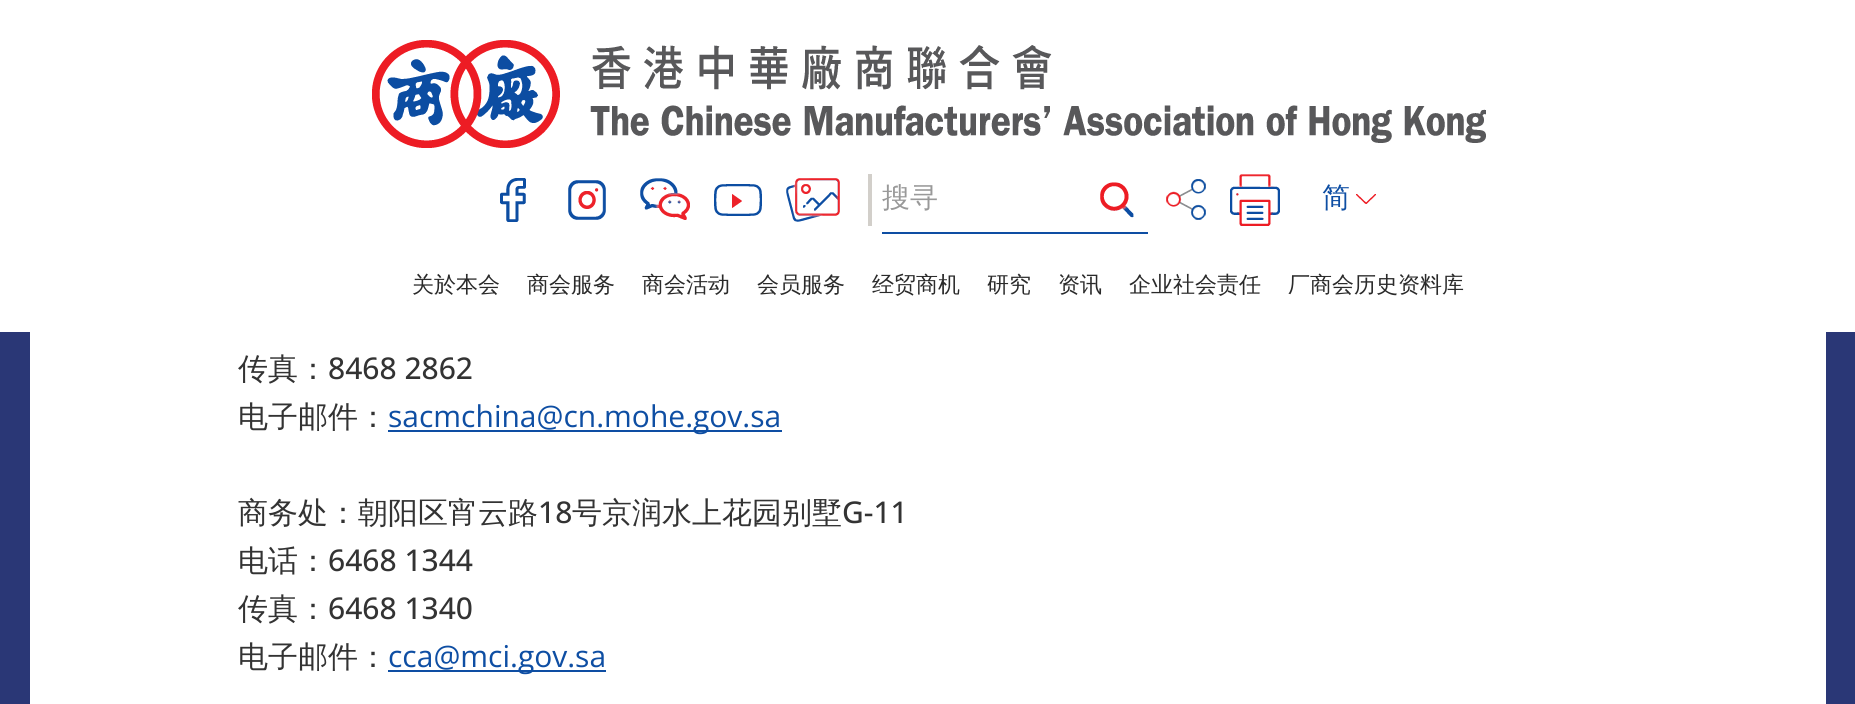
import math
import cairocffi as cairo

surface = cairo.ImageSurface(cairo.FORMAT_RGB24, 1855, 704)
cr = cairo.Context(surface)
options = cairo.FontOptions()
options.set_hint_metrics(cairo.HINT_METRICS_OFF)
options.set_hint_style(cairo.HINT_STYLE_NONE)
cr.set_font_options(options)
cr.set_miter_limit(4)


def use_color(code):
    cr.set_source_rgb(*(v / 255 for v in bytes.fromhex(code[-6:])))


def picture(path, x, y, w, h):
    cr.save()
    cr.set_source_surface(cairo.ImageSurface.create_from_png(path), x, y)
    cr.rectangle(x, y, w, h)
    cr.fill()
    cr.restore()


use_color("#2a3776")
cr.paint()
use_color("#ffffff")
cr.rectangle(0, 0, 1855, 332)
cr.fill()
picture("img1.png", 372, 40, 1114, 108)
picture("img2.png", 500, 178, 26, 44)
picture("img3.png", 568, 180, 38, 40)
picture("img4.png", 640, 178, 50, 42)
picture("img5.png", 714, 184, 48, 32)
picture("img6.png", 786, 178, 54, 44)
use_color("#d2cfca")
cr.rectangle(868, 174, 4, 52)
cr.fill()
use_color("#0e4ea3")
cr.rectangle(882, 232, 266, 2)
cr.fill()
cr.select_font_face("WenQuanYi Zen Hei Medium")
cr.set_font_size(28)
use_color("#999999")
cr.move_to(882, 207)
cr.show_text("搜寻")
picture("img7.png", 1100, 182, 34, 36)
picture("img8.png", 1166, 179, 40, 41)
picture("img9.png", 1230, 174, 50, 52)
use_color("#0e4ea3")
cr.move_to(1322, 207)
cr.show_text("简")
picture("img10.png", 1356, 194, 20, 10)
cr.set_font_size(22)
use_color("#2a2a2a")
cr.move_to(412, 292)
cr.show_text("关於本会")
cr.move_to(527, 292)
cr.show_text("商会服务")
cr.move_to(642, 292)
cr.show_text("商会活动")
cr.move_to(757, 292)
cr.show_text("会员服务")
cr.move_to(872, 292)
cr.show_text("经贸商机")
cr.move_to(987, 292)
cr.show_text("研究")
cr.move_to(1058, 292)
cr.show_text("资讯")
cr.move_to(1129, 292)
cr.show_text("企业社会责任")
cr.move_to(1288, 292)
cr.show_text("厂商会历史资料库")
use_color("#ffffff")
cr.rectangle(30, 332, 1796, 372)
cr.fill()
cr.set_font_size(30)
use_color("#333333")
cr.move_to(238, 379)
cr.show_text("传真：")
cr.select_font_face("Open Sans Medium")
cr.move_to(328, 379)
cr.show_text("8468 2862")
cr.select_font_face("WenQuanYi Zen Hei Medium")
cr.move_to(238, 427)
cr.show_text("电子邮件：")
use_color("#0e4ea3")
cr.rectangle(388, 430, 394, 2)
cr.fill()
cr.select_font_face("Open Sans")
cr.move_to(388, 427)
cr.show_text("sacmchina@cn.mohe.gov.sa")
cr.select_font_face("WenQuanYi Zen Hei Medium")
use_color("#333333")
cr.move_to(238, 523)
cr.show_text("商务处：朝阳区宵云路")
cr.select_font_face("Open Sans Medium")
cr.move_to(538, 523)
cr.show_text("18")
cr.select_font_face("WenQuanYi Zen Hei Medium")
cr.move_to(572, 523)
cr.show_text("号京润水上花园别墅")
cr.select_font_face("Open Sans Medium")
cr.move_to(842, 523)
cr.show_text("G-11")
cr.select_font_face("WenQuanYi Zen Hei Medium")
cr.move_to(238, 571)
cr.show_text("电话：")
cr.select_font_face("Open Sans Medium")
cr.move_to(328, 571)
cr.show_text("6468 1344")
cr.select_font_face("WenQuanYi Zen Hei Medium")
cr.move_to(238, 619)
cr.show_text("传真：")
cr.select_font_face("Open Sans Medium")
cr.move_to(328, 619)
cr.show_text("6468 1340")
cr.select_font_face("WenQuanYi Zen Hei Medium")
cr.move_to(238, 667)
cr.show_text("电子邮件：")
use_color("#0e4ea3")
cr.rectangle(388, 670, 218, 2)
cr.fill()
cr.select_font_face("Open Sans")
cr.move_to(388, 667)
cr.show_text("cca@mci.gov.sa")
surface.write_to_png("result.png")
